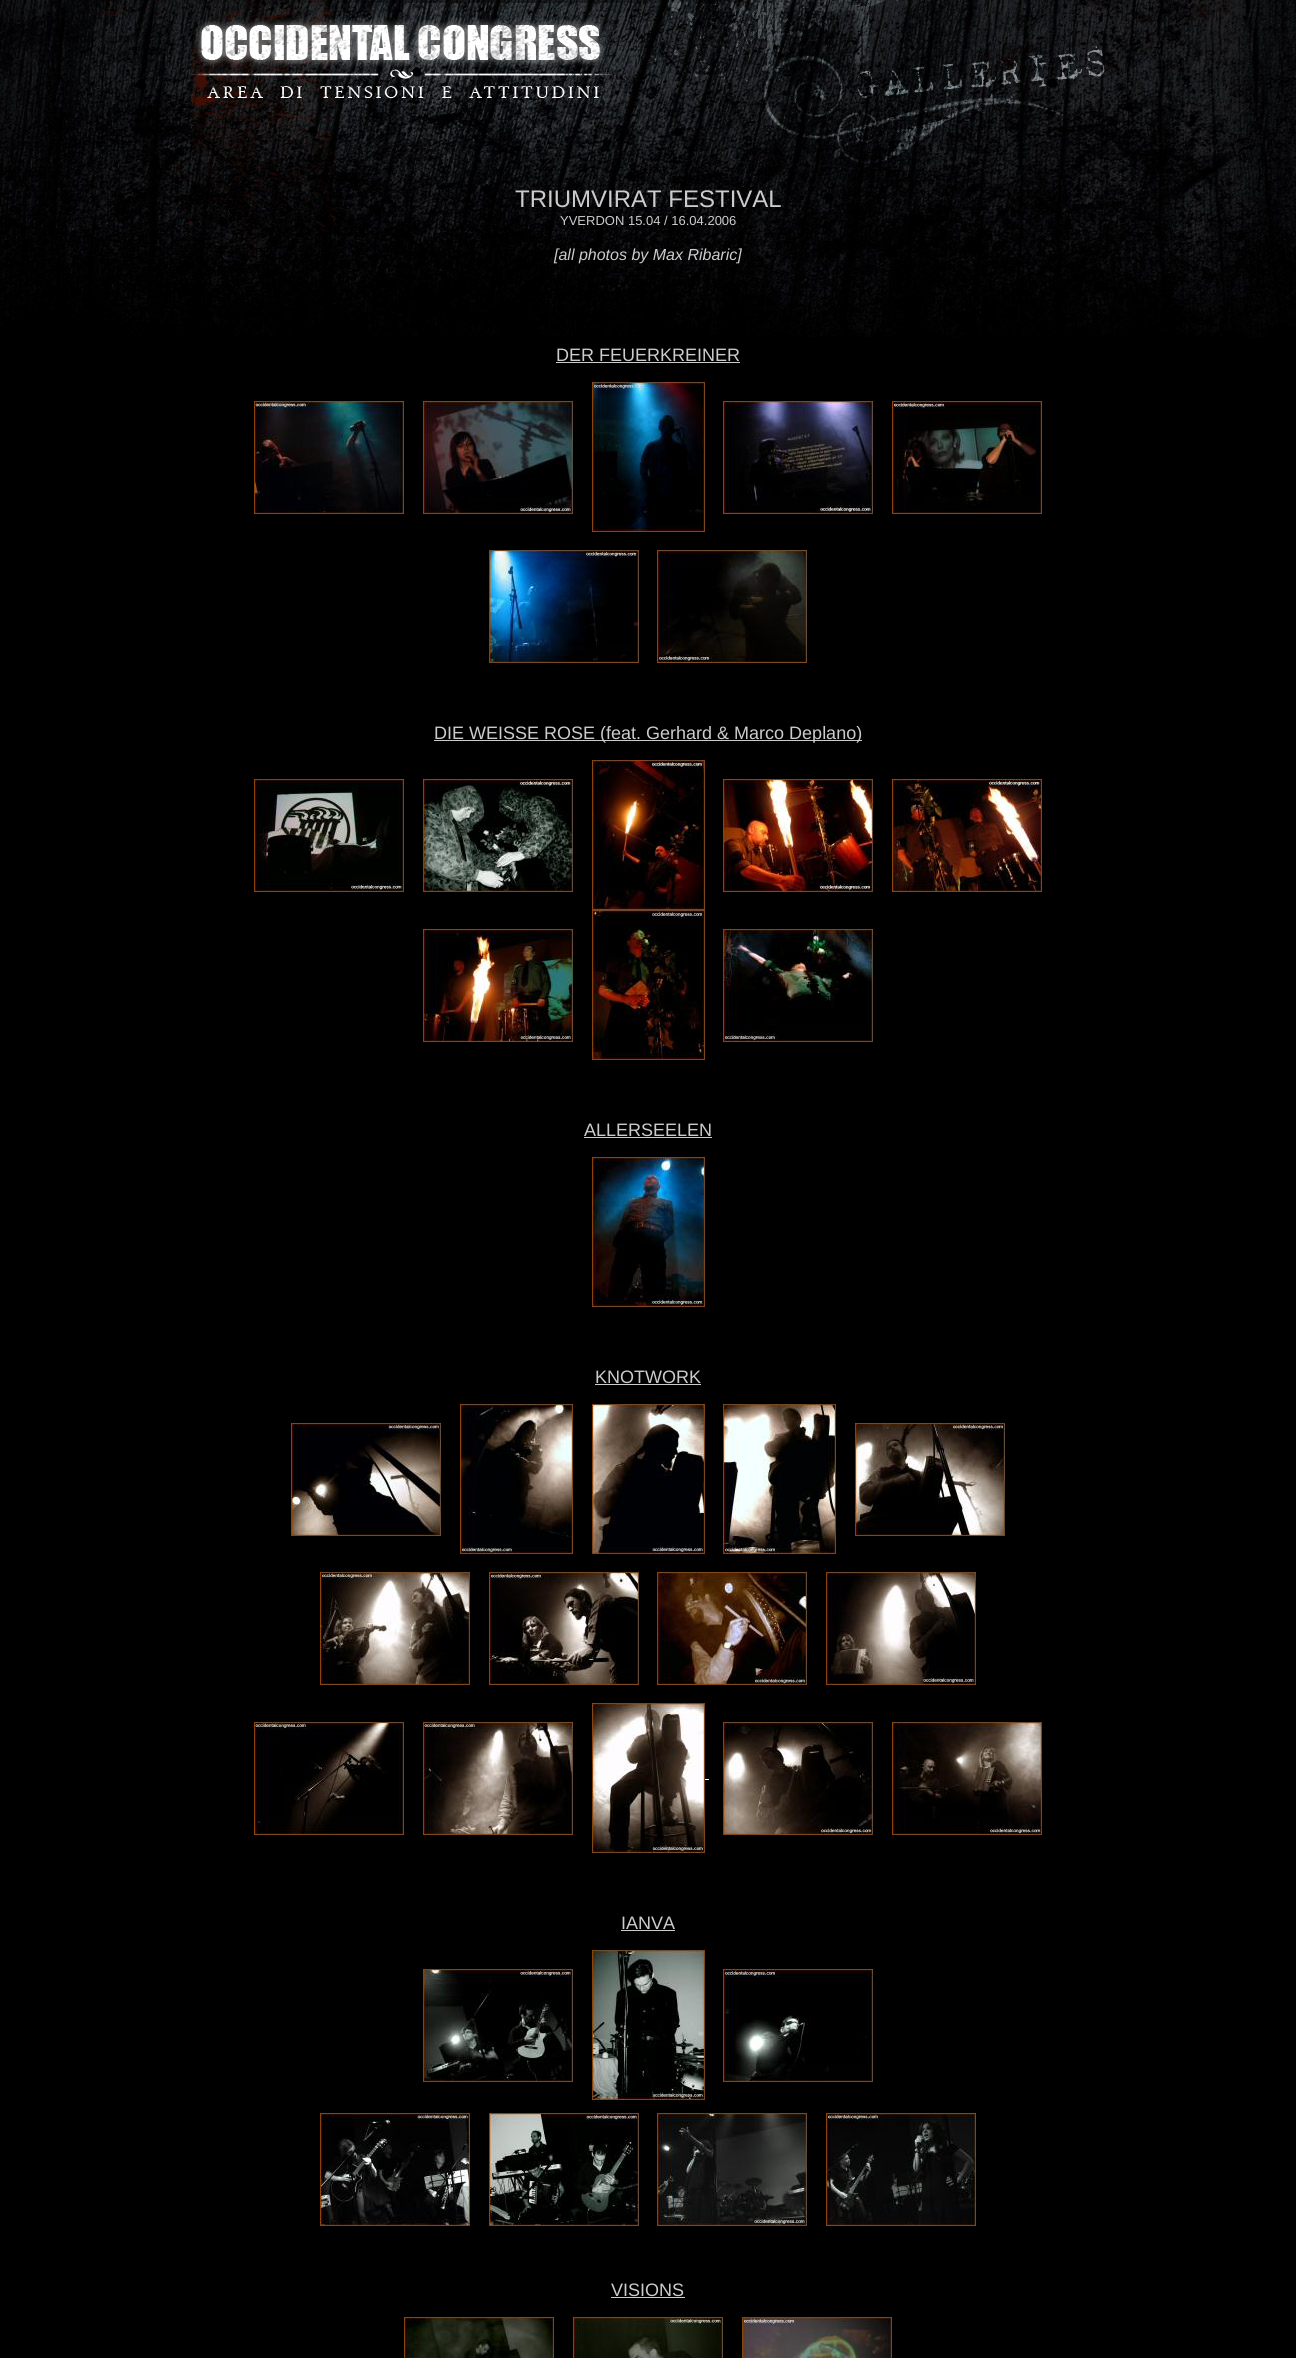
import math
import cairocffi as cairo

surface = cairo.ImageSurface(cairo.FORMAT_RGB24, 1296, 2358)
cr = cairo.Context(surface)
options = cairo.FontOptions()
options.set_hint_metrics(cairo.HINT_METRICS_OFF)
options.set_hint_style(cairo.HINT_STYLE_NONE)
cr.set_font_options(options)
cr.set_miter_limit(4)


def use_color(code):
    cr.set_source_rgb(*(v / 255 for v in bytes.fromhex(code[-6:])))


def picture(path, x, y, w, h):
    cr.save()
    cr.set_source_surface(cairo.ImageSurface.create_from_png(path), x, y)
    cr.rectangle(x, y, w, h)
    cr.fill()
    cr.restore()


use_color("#000000")
cr.paint()
picture("img1.png", 0, 0, 1296, 337)
picture("img2.png", 190, 18, 422, 80)
cr.select_font_face("Liberation Sans")
cr.set_font_size(24)
use_color("#cccccc")
cr.move_to(515, 207)
cr.show_text("TRIUMVIRAT FESTIVAL")
cr.set_font_size(13)
cr.move_to(560, 225)
cr.show_text("YVERDON 15.04 / 16.04.2006")
cr.select_font_face("Liberation Sans", cairo.FONT_SLANT_ITALIC)
cr.set_font_size(16)
cr.move_to(554, 260)
cr.show_text("[all photos by Max Ribaric]")
cr.select_font_face("Liberation Sans")
cr.set_font_size(18)
cr.move_to(556, 361)
cr.show_text("DER FEUERKREINER")
cr.rectangle(556, 362, 184, 1)
cr.fill()
picture("img3.png", 254, 401, 150, 113)
picture("img4.png", 423, 401, 150, 113)
picture("img5.png", 592, 382, 113, 150)
picture("img6.png", 723, 401, 150, 113)
picture("img7.png", 892, 401, 150, 113)
picture("img8.png", 489, 550, 150, 113)
picture("img9.png", 657, 550, 150, 113)
cr.rectangle(434, 740, 428, 1)
cr.fill()
cr.move_to(434, 739)
cr.show_text("DIE WEISSE ROSE (feat. Gerhard & Marco Deplano)")
picture("img10.png", 254, 779, 150, 113)
picture("img11.png", 423, 779, 150, 113)
picture("img12.png", 592, 760, 113, 150)
picture("img13.png", 723, 779, 150, 113)
picture("img14.png", 892, 779, 150, 113)
picture("img15.png", 423, 929, 150, 113)
picture("img16.png", 592, 910, 113, 150)
picture("img17.png", 723, 929, 150, 113)
cr.move_to(584, 1136)
cr.show_text("ALLERSEELEN")
cr.rectangle(584, 1137, 128, 1)
cr.fill()
picture("img18.png", 592, 1157, 113, 150)
cr.move_to(595, 1383)
cr.show_text("KNOTWORK")
cr.rectangle(595, 1384, 106, 1)
cr.fill()
picture("img19.png", 291, 1423, 150, 113)
picture("img20.png", 460, 1404, 113, 150)
picture("img21.png", 592, 1404, 113, 150)
picture("img22.png", 723, 1404, 113, 150)
picture("img23.png", 855, 1423, 150, 113)
picture("img24.png", 320, 1572, 150, 113)
picture("img25.png", 489, 1572, 150, 113)
picture("img26.png", 657, 1572, 150, 113)
picture("img27.png", 826, 1572, 150, 113)
picture("img28.png", 254, 1722, 150, 113)
picture("img29.png", 423, 1722, 150, 113)
picture("img30.png", 592, 1703, 113, 150)
use_color("#ffffff")
cr.rectangle(705, 1779, 4, 1)
cr.fill()
picture("img31.png", 723, 1722, 150, 113)
picture("img32.png", 892, 1722, 150, 113)
use_color("#cccccc")
cr.move_to(621, 1929)
cr.show_text("IANVA")
cr.rectangle(621, 1930, 54, 1)
cr.fill()
picture("img33.png", 423, 1969, 150, 113)
picture("img34.png", 592, 1950, 113, 150)
picture("img35.png", 723, 1969, 150, 113)
picture("img36.png", 320, 2113, 150, 113)
picture("img37.png", 489, 2113, 150, 113)
picture("img38.png", 657, 2113, 150, 113)
picture("img39.png", 826, 2113, 150, 113)
cr.move_to(611, 2296)
cr.show_text("VISIONS")
cr.rectangle(611, 2297, 74, 1)
cr.fill()
picture("img40.png", 404, 2317, 150, 41)
picture("img41.png", 573, 2317, 150, 41)
picture("img42.png", 742, 2317, 150, 41)
surface.write_to_png("result.png")
